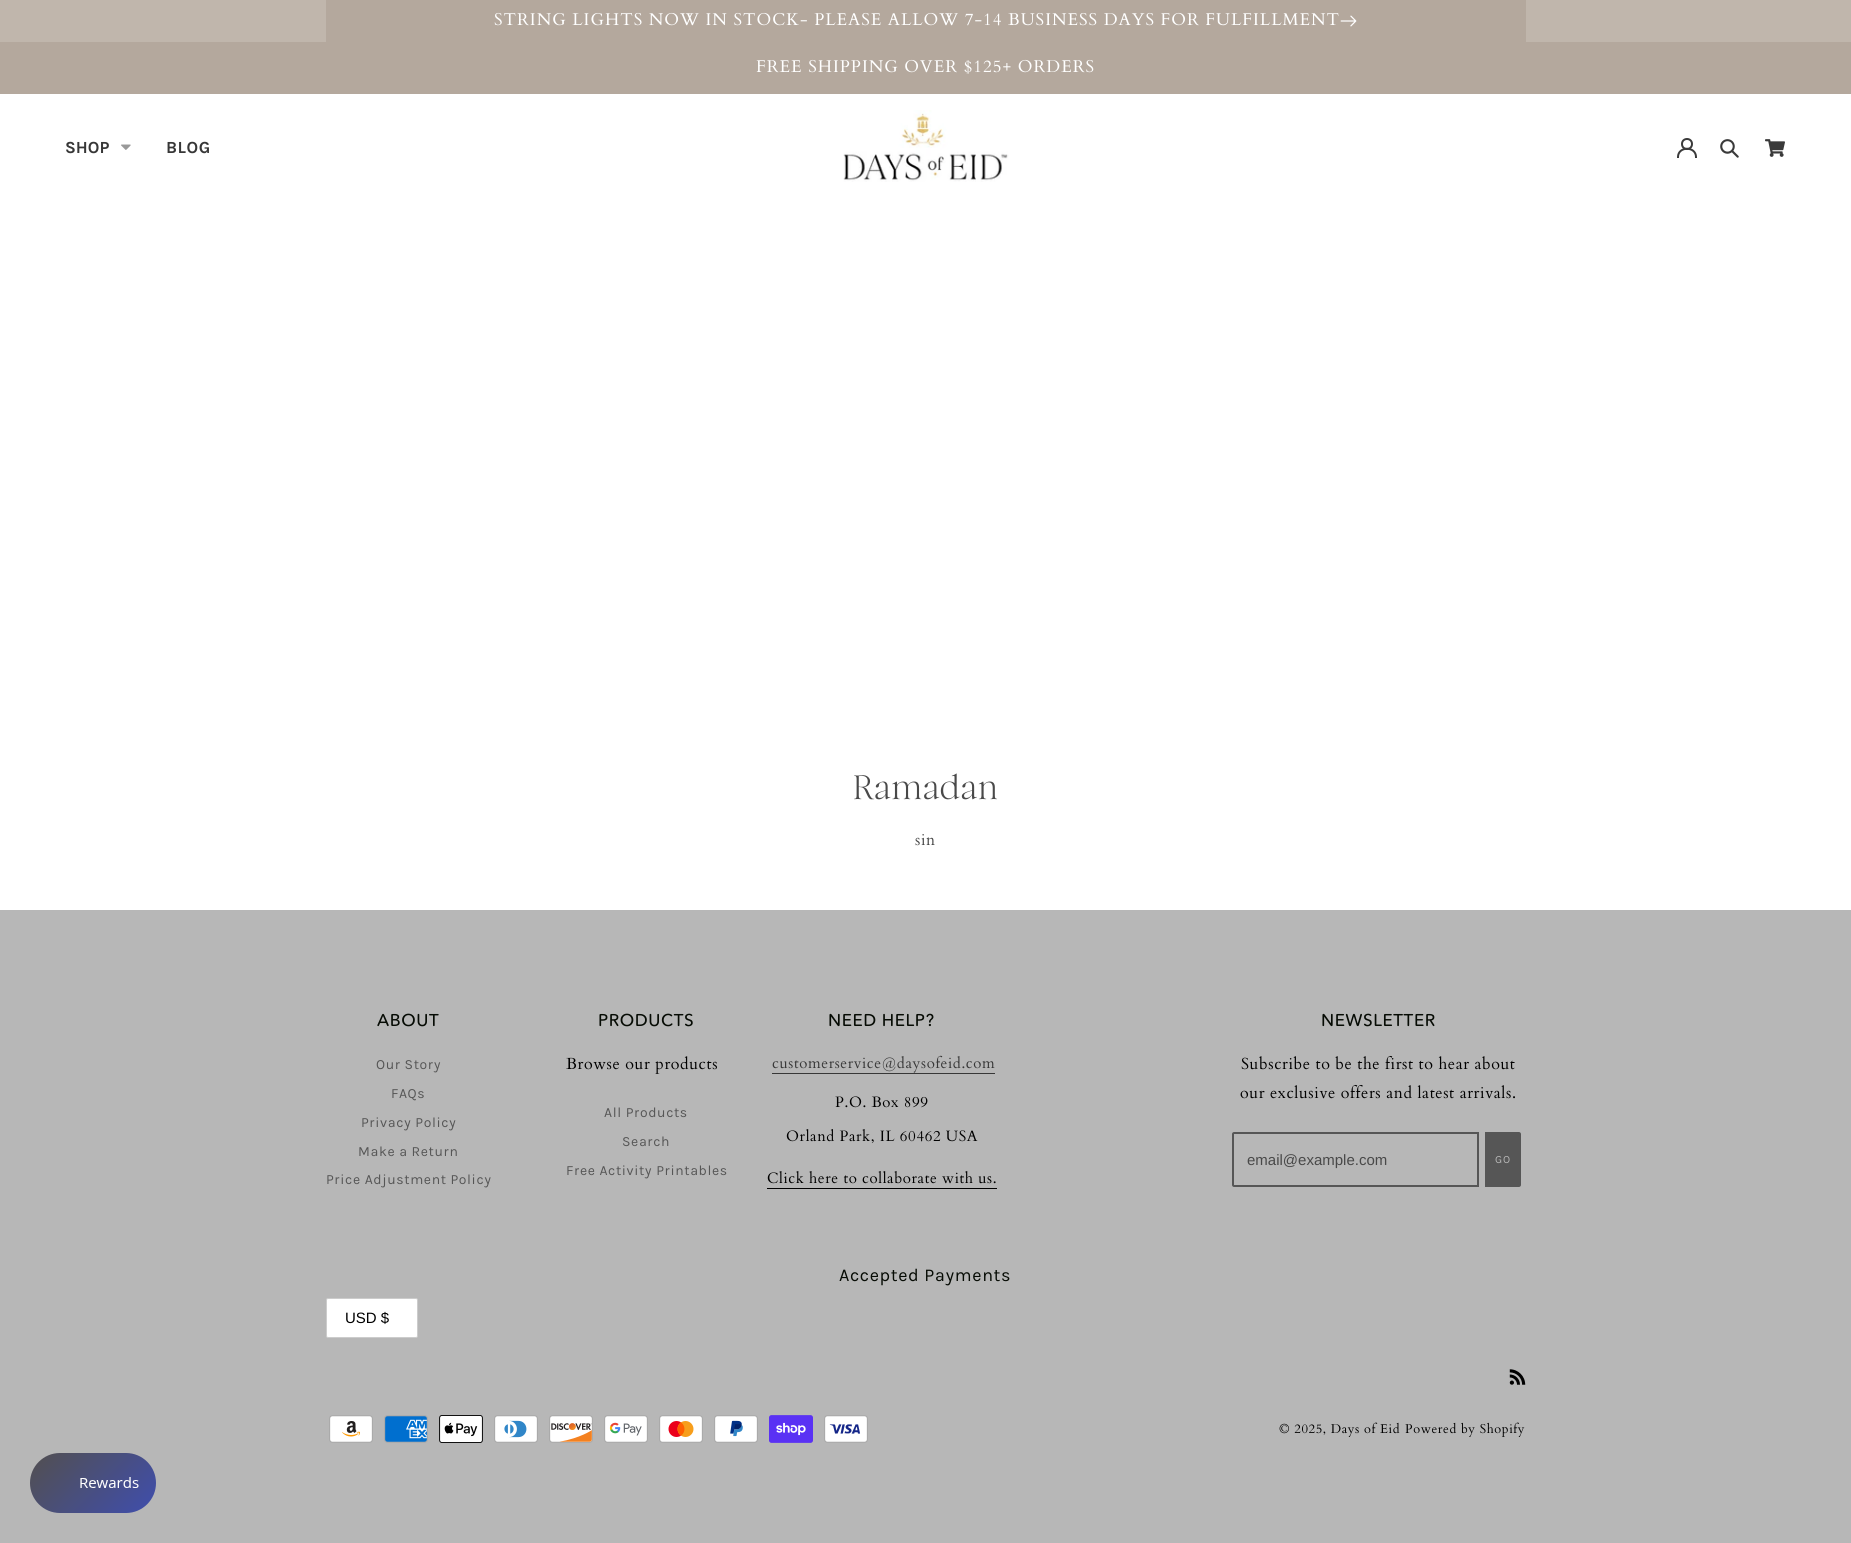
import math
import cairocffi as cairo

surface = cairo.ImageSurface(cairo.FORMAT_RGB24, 1851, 1543)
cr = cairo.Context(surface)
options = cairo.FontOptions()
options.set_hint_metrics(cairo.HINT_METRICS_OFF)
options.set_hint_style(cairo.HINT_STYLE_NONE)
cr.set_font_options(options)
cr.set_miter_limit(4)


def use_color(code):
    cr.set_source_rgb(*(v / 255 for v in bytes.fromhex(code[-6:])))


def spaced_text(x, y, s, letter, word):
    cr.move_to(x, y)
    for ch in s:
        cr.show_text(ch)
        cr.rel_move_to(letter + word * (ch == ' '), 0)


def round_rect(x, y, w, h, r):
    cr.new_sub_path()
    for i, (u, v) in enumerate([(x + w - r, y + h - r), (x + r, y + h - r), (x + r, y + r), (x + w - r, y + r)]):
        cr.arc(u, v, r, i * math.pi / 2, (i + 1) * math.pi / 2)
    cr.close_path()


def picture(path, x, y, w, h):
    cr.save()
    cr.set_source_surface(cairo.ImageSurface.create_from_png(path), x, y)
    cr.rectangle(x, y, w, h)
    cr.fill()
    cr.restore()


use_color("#ffffff")
cr.paint()
use_color("#c0b6ac")
cr.rectangle(0, 0, 1851, 42)
cr.fill()
use_color("#b4a89d")
cr.rectangle(326, 0, 1200, 42)
cr.fill()
cr.select_font_face("Cardo")
cr.set_font_size(17.05)
use_color("#ffffff")
spaced_text(494, 25, "STRING LIGHTS NOW IN STOCK- PLEASE ALLOW 7-14 BUSINESS DAYS FOR FULFILLMENT", 1, 0)
picture("img1.png", 1340, 15, 17, 12)
use_color("#b4a89d")
cr.rectangle(0, 42, 1851, 52)
cr.fill()
use_color("#ffffff")
spaced_text(756, 72, "FREE SHIPPING OVER $125+ ORDERS", 1, 0)
cr.select_font_face("Karla", cairo.FONT_SLANT_NORMAL, cairo.FONT_WEIGHT_BOLD)
cr.set_font_size(17)
use_color("#373737")
cr.move_to(65, 153)
cr.show_text("SHOP")
picture("img2.png", 121, 144, 10, 6)
spaced_text(166, 153, "BLOG", 0.6, 0)
picture("img3.png", 843, 110, 166, 72)
cr.new_path()
cr.move_to(1678, 157)
cr.curve_to(1678, 146, 1696, 146, 1696, 157)
use_color("#3a3a3a")
cr.set_line_cap(cairo.LINE_CAP_SQUARE)
cr.stroke()
cr.arc(1687, 144, 5, 0, 2 * math.pi)
cr.set_line_cap(cairo.LINE_CAP_BUTT)
cr.stroke()
picture("img4.png", 1720, 139, 19, 19)
picture("img5.png", 1765, 139, 20, 18)
cr.select_font_face("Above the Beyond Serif")
cr.set_font_size(35)
use_color("#494949")
cr.move_to(852, 799)
cr.show_text("Ramadan")
cr.select_font_face("Cardo")
cr.set_font_size(16)
spaced_text(915, 845, "sin", 0.6, 0)
use_color("#b7b7b7")
cr.rectangle(0, 910, 1851, 633)
cr.fill()
cr.select_font_face("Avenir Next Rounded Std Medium")
cr.set_font_size(17)
use_color("#060b04")
spaced_text(377, 1026, "ABOUT", 0.6, 0)
cr.select_font_face("Karla")
cr.set_font_size(14)
use_color("#565656")
spaced_text(376, 1069, "Our Story", 0.6, 0)
spaced_text(391, 1098, "FAQs", 0.6, 0)
spaced_text(361, 1127, "Privacy Policy", 0.6, 0)
spaced_text(358, 1156, "Make a Return", 0.6, 0)
spaced_text(326, 1184, "Price Adjustment Policy", 0.6, 0)
cr.select_font_face("Avenir Next Rounded Std Medium")
cr.set_font_size(17)
use_color("#060b04")
spaced_text(598, 1026, "PRODUCTS", 0.6, 0)
cr.select_font_face("Cardo")
cr.set_font_size(16)
use_color("#000000")
spaced_text(566, 1069, "Browse our products", 0.6, 0)
cr.select_font_face("Karla")
cr.set_font_size(14)
use_color("#565656")
spaced_text(604, 1117, "All Products", 0.6, 0)
spaced_text(622, 1146, "Search", 0.6, 0)
spaced_text(566, 1175, "Free Activity Printables", 0.6, 0)
cr.select_font_face("Avenir Next Rounded Std Medium")
cr.set_font_size(17)
use_color("#060b04")
spaced_text(828, 1026, "NEED HELP?", 0.6, 0)
cr.select_font_face("Cardo")
cr.set_font_size(15)
use_color("#373737")
spaced_text(772, 1068, "customerservice@daysofeid.com", 0.6, 0)
cr.rectangle(772, 1073, 223, 1)
cr.fill()
use_color("#000000")
spaced_text(835, 1107, "P.O. Box 899", 0.6, 0)
spaced_text(786, 1141, "Orland Park, IL 60462 USA", 0.6, 0)
spaced_text(767, 1183, "Click here to collaborate with us.", 0.6, 0)
cr.rectangle(767, 1188, 230, 1)
cr.fill()
cr.select_font_face("Avenir Next Rounded Std Medium")
cr.set_font_size(17)
use_color("#060b04")
spaced_text(1321, 1026, "NEWSLETTER", 0.6, 0)
cr.select_font_face("Cardo")
cr.set_font_size(16)
use_color("#000000")
spaced_text(1241, 1069, "Subscribe to be the first to hear about", 0.6, 0)
spaced_text(1240, 1098, "our exclusive offers and latest arrivals.", 0.6, 0)
cr.new_path()
cr.move_to(1234, 1133)
cr.line_to(1478, 1133)
cr.line_to(1478, 1186)
cr.line_to(1234, 1186)
cr.curve_to(1233.5, 1186, 1233, 1185.5, 1233, 1185)
cr.line_to(1233, 1134)
cr.curve_to(1233, 1133.5, 1233.5, 1133, 1234, 1133)
cr.close_path()
use_color("#565656")
cr.stroke()
cr.select_font_face("Liberation Sans")
cr.set_font_size(15)
use_color("#494949")
cr.move_to(1247, 1165)
cr.show_text("email@example.com")
use_color("#565656")
cr.new_path()
cr.move_to(1485, 1132)
cr.line_to(1519, 1132)
cr.curve_to(1520, 1132, 1521, 1133, 1521, 1134)
cr.line_to(1521, 1185)
cr.curve_to(1521, 1186, 1520, 1187, 1519, 1187)
cr.line_to(1485, 1187)
cr.close_path()
cr.fill()
cr.select_font_face("Karla")
cr.set_font_size(11)
use_color("#b7b7b7")
spaced_text(1495, 1163, "GO", 1, 0)
cr.set_font_size(18)
use_color("#060b04")
spaced_text(839, 1281, "Accepted Payments", 0.6, 0)
use_color("#ffffff")
round_rect(326.5, 1298.5, 91, 39, 1.5)
cr.fill_preserve()
use_color("#cccccc")
cr.set_line_width(1)
cr.stroke()
cr.select_font_face("Liberation Sans")
cr.set_font_size(15)
use_color("#000000")
cr.move_to(345, 1323)
cr.show_text("USD $")
picture("img6.png", 1509, 1369, 17, 16)
picture("img7.png", 329, 1415, 44, 28)
picture("img8.png", 384, 1415, 44, 28)
picture("img9.png", 439, 1415, 44, 28)
picture("img10.png", 494, 1415, 44, 28)
picture("img11.png", 549, 1415, 44, 28)
picture("img12.png", 604, 1415, 44, 28)
picture("img13.png", 659, 1415, 44, 28)
picture("img14.png", 714, 1415, 44, 28)
picture("img15.png", 769, 1415, 44, 28)
picture("img16.png", 824, 1415, 44, 28)
cr.select_font_face("Cardo")
cr.set_font_size(12.75)
spaced_text(1279, 1433, "© 2025, Days of Eid", 0.6, 0)
spaced_text(1405, 1433, "Powered by Shopify", 0.6, 0)
gradient = cairo.LinearGradient(46, 1437, 140, 1530)
gradient.add_color_stop_rgba(0, 0.322, 0.31, 0.31, 1)
gradient.add_color_stop_rgba(1, 0.247, 0.306, 0.682, 1)
cr.set_source(gradient)
round_rect(30, 1453, 126, 60, 30)
cr.fill()
picture("img17.png", 80, 1477, 59, 11)
surface.write_to_png("result.png")
